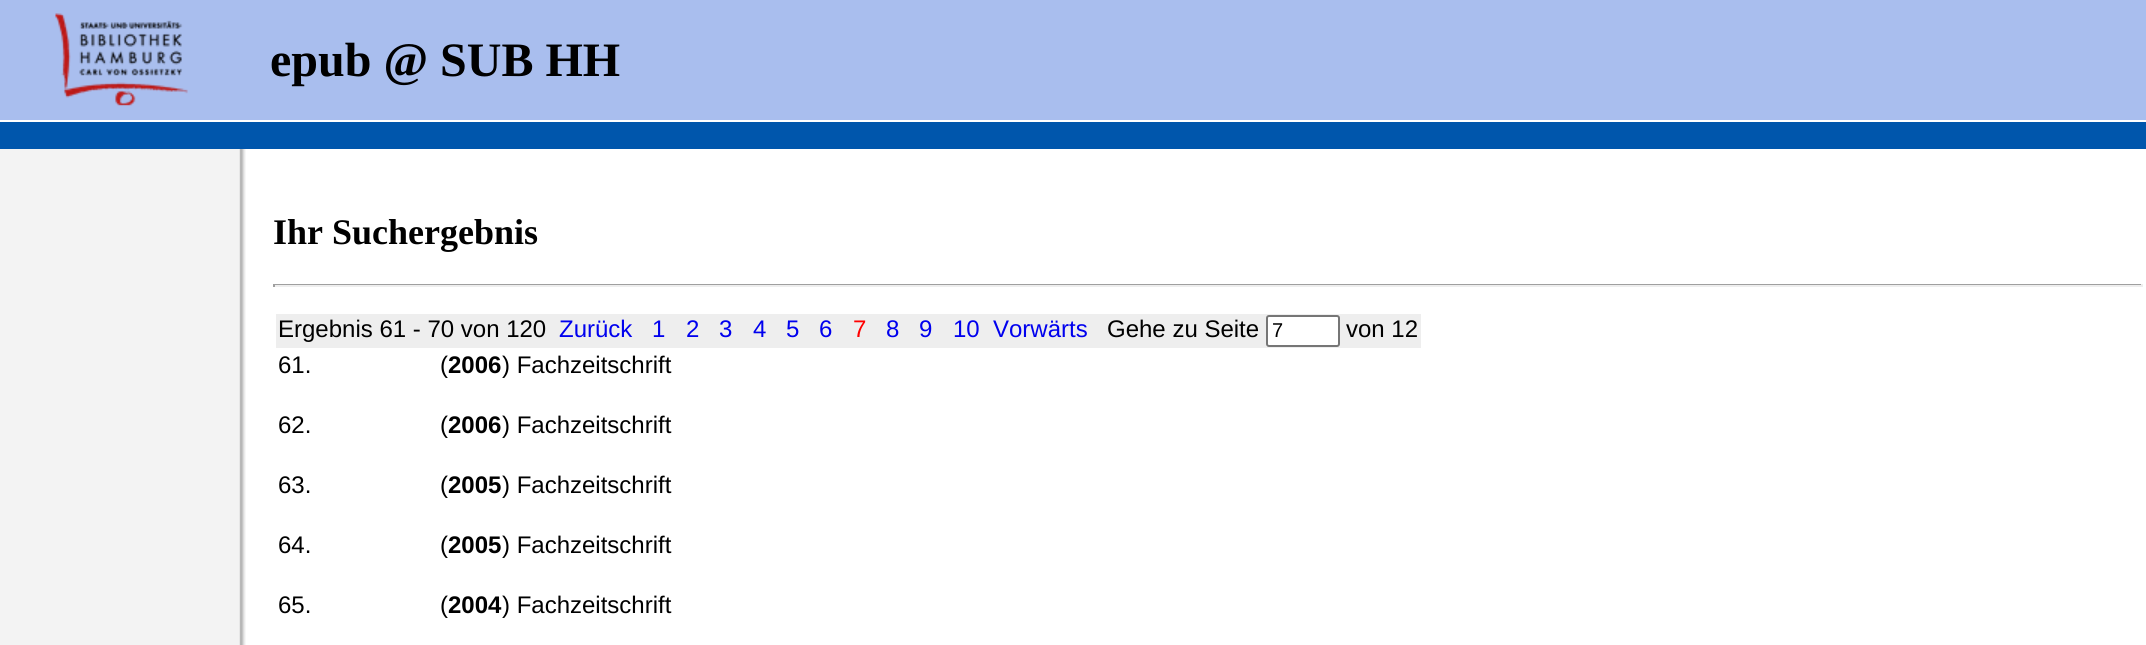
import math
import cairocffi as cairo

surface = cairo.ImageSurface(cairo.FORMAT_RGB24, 2146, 645)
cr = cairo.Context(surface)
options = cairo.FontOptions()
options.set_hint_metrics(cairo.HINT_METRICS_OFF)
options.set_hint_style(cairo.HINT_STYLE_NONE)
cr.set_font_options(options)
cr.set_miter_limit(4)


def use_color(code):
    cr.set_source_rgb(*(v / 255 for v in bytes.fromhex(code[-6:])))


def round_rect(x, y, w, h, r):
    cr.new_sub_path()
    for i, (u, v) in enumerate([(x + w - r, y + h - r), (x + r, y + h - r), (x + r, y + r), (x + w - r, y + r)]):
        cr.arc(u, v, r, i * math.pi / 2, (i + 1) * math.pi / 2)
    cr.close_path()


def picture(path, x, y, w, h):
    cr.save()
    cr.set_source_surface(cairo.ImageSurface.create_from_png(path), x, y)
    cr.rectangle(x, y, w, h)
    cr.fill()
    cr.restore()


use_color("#ffffff")
cr.paint()
picture("img1.png", 0, 149, 246, 496)
use_color("#a9beee")
cr.rectangle(0, 0, 2146, 120)
cr.fill()
picture("img2.png", 55, 13, 133, 93)
cr.select_font_face("Liberation Serif", cairo.FONT_SLANT_NORMAL, cairo.FONT_WEIGHT_BOLD)
cr.set_font_size(48)
use_color("#000000")
cr.move_to(270, 76)
cr.show_text("epub @ SUB HH")
use_color("#0056ac")
cr.rectangle(0, 122, 2146, 27)
cr.fill()
cr.set_font_size(36)
use_color("#000000")
cr.move_to(273, 244)
cr.show_text("Ihr Suchergebnis")
use_color("#9f9f9f")
cr.rectangle(273, 284, 1869, 1)
cr.fill()
use_color("#eeeeee")
cr.rectangle(2141, 284, 2, 3)
cr.fill()
cr.rectangle(273, 285, 1869, 2)
cr.fill()
use_color("#9f9f9f")
cr.rectangle(273, 284, 2, 3)
cr.fill()
use_color("#eeeeee")
cr.rectangle(276, 314, 1145, 34)
cr.fill()
cr.select_font_face("Liberation Sans")
cr.set_font_size(24)
use_color("#000000")
cr.move_to(278, 337)
cr.show_text("Ergebnis 61 - 70 von 120")
use_color("#0000ee")
cr.move_to(559, 337)
cr.show_text("Zurück")
cr.move_to(652, 337)
cr.show_text("1")
cr.move_to(686, 337)
cr.show_text("2")
cr.move_to(719, 337)
cr.show_text("3")
cr.move_to(753, 337)
cr.show_text("4")
cr.move_to(786, 337)
cr.show_text("5")
cr.move_to(819, 337)
cr.show_text("6")
use_color("#ff0000")
cr.move_to(853, 337)
cr.show_text("7")
use_color("#0000ee")
cr.move_to(886, 337)
cr.show_text("8")
cr.move_to(919, 337)
cr.show_text("9")
cr.move_to(953, 337)
cr.show_text("10")
cr.move_to(993, 337)
cr.show_text("Vorwärts")
use_color("#000000")
cr.move_to(1107, 337)
cr.show_text("Gehe zu Seite")
use_color("#ffffff")
round_rect(1267, 316, 72, 30, 2)
cr.fill_preserve()
use_color("#767676")
cr.stroke()
cr.set_font_size(20)
use_color("#000000")
cr.move_to(1272, 337)
cr.show_text("7")
cr.set_font_size(24)
cr.move_to(1346, 337)
cr.show_text("von 12")
cr.move_to(278, 373)
cr.show_text("61.")
cr.move_to(440, 373)
cr.show_text("(")
cr.select_font_face("Liberation Sans", cairo.FONT_SLANT_NORMAL, cairo.FONT_WEIGHT_BOLD)
cr.move_to(448, 373)
cr.show_text("2006")
cr.select_font_face("Liberation Sans")
cr.move_to(502, 373)
cr.show_text(") Fachzeitschrift")
cr.move_to(278, 433)
cr.show_text("62.")
cr.move_to(440, 433)
cr.show_text("(")
cr.select_font_face("Liberation Sans", cairo.FONT_SLANT_NORMAL, cairo.FONT_WEIGHT_BOLD)
cr.move_to(448, 433)
cr.show_text("2006")
cr.select_font_face("Liberation Sans")
cr.move_to(502, 433)
cr.show_text(") Fachzeitschrift")
cr.move_to(278, 493)
cr.show_text("63.")
cr.move_to(440, 493)
cr.show_text("(")
cr.select_font_face("Liberation Sans", cairo.FONT_SLANT_NORMAL, cairo.FONT_WEIGHT_BOLD)
cr.move_to(448, 493)
cr.show_text("2005")
cr.select_font_face("Liberation Sans")
cr.move_to(502, 493)
cr.show_text(") Fachzeitschrift")
cr.move_to(278, 553)
cr.show_text("64.")
cr.move_to(440, 553)
cr.show_text("(")
cr.select_font_face("Liberation Sans", cairo.FONT_SLANT_NORMAL, cairo.FONT_WEIGHT_BOLD)
cr.move_to(448, 553)
cr.show_text("2005")
cr.select_font_face("Liberation Sans")
cr.move_to(502, 553)
cr.show_text(") Fachzeitschrift")
cr.move_to(278, 613)
cr.show_text("65.")
cr.move_to(440, 613)
cr.show_text("(")
cr.select_font_face("Liberation Sans", cairo.FONT_SLANT_NORMAL, cairo.FONT_WEIGHT_BOLD)
cr.move_to(448, 613)
cr.show_text("2004")
cr.select_font_face("Liberation Sans")
cr.move_to(502, 613)
cr.show_text(") Fachzeitschrift")
surface.write_to_png("result.png")
